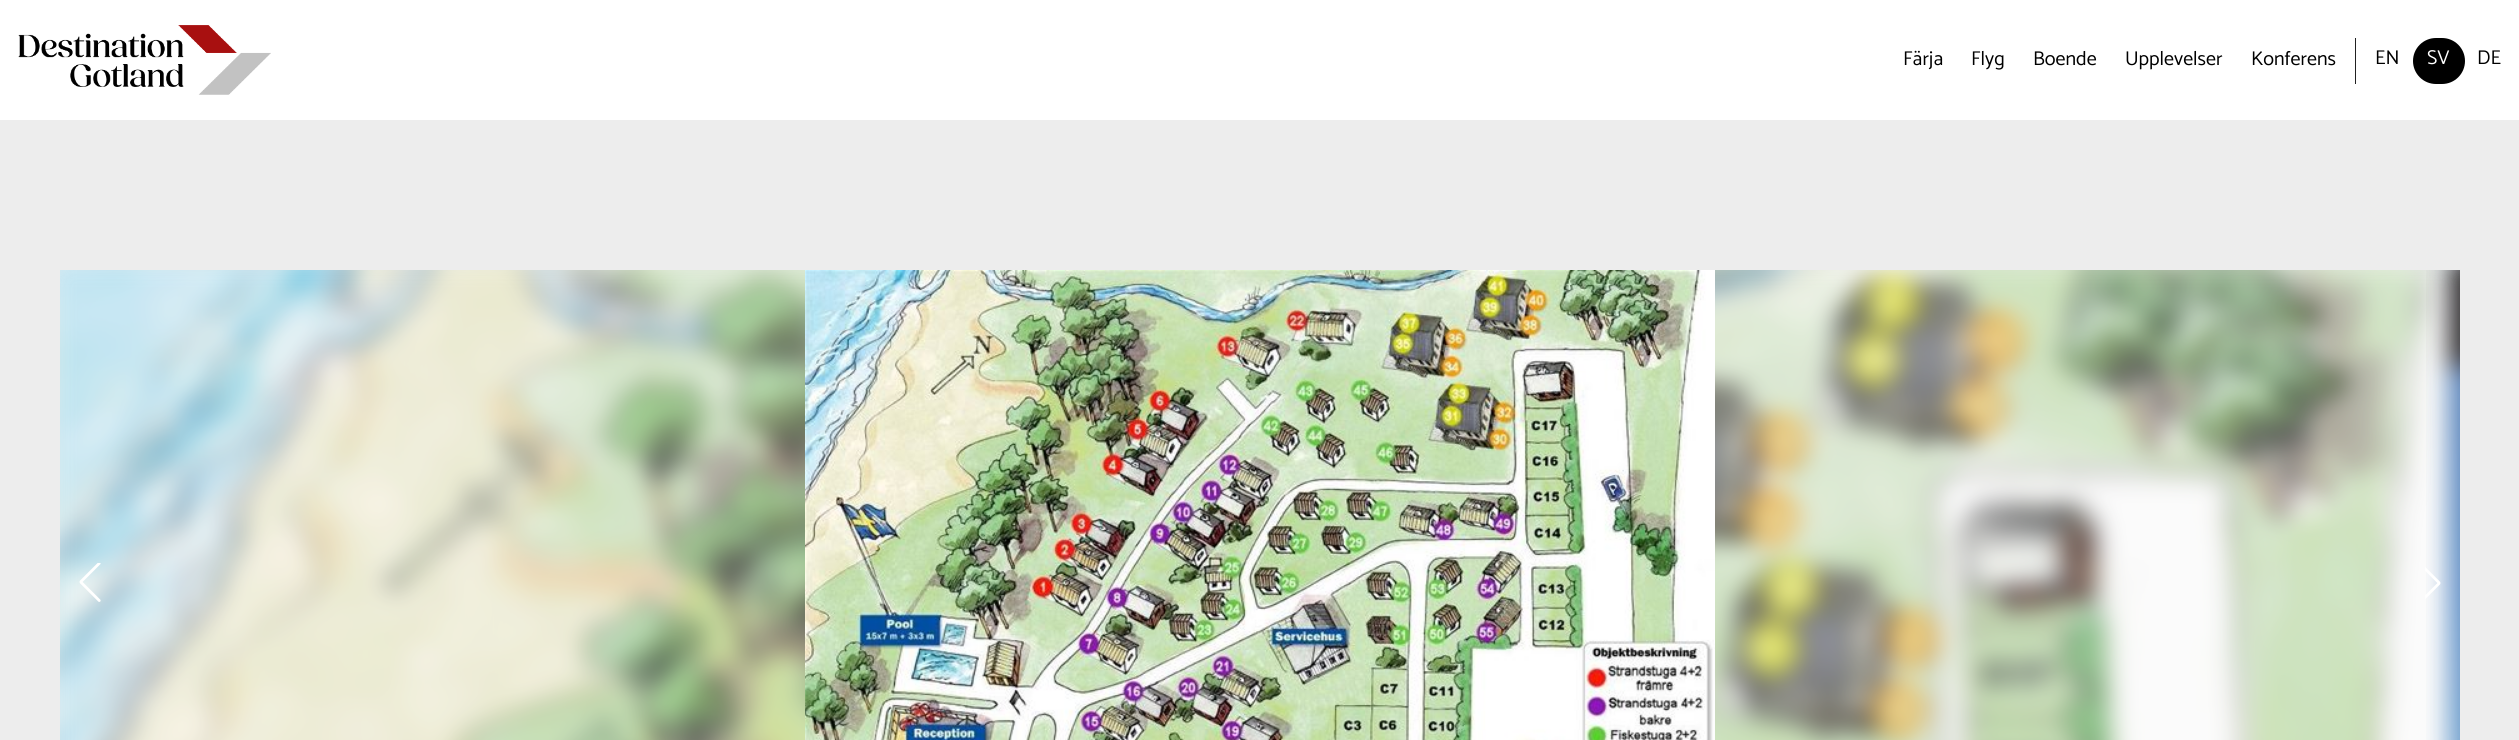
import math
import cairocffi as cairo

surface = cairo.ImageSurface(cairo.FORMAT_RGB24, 2519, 740)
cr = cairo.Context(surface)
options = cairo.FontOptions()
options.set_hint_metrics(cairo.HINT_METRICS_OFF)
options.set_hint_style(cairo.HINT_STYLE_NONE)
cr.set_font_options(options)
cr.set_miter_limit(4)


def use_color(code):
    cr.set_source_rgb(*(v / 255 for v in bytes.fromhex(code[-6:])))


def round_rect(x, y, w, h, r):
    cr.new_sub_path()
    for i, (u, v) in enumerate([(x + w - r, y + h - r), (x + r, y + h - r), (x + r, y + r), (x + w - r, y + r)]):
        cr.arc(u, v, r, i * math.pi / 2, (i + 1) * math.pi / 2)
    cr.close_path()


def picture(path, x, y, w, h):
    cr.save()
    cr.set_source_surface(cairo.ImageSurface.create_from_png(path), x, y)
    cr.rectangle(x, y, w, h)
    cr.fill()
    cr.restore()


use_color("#ededed")
cr.paint()
use_color("#ffffff")
cr.rectangle(0, 0, 2519, 120)
cr.fill()
picture("img1.png", 18, 25, 253, 70)
cr.select_font_face("Catamaran")
cr.set_font_size(20)
use_color("#000000")
cr.move_to(1903, 65)
cr.show_text("Färja")
cr.move_to(1971, 65)
cr.show_text("Flyg")
cr.move_to(2033, 65)
cr.show_text("Boende")
cr.move_to(2125, 65)
cr.show_text("Upplevelser")
cr.move_to(2251, 65)
cr.show_text("Konferens")
use_color("#212121")
cr.rectangle(2355, 38, 1, 46)
cr.fill()
use_color("#000000")
cr.move_to(2375, 64)
cr.show_text("EN")
round_rect(2413, 38, 52, 46, 23)
cr.fill()
use_color("#ffffff")
cr.move_to(2427, 64)
cr.show_text("SV")
use_color("#000000")
cr.move_to(2477, 64)
cr.show_text("DE")
picture("img2.png", 60, 270, 2400, 470)
picture("img3.png", 805, 270, 910, 470)
picture("img4.png", 2426, 270, 34, 470)
picture("img5.png", 79, 563, 22, 39)
picture("img6.png", 2425, 567, 16, 32)
surface.write_to_png("result.png")
